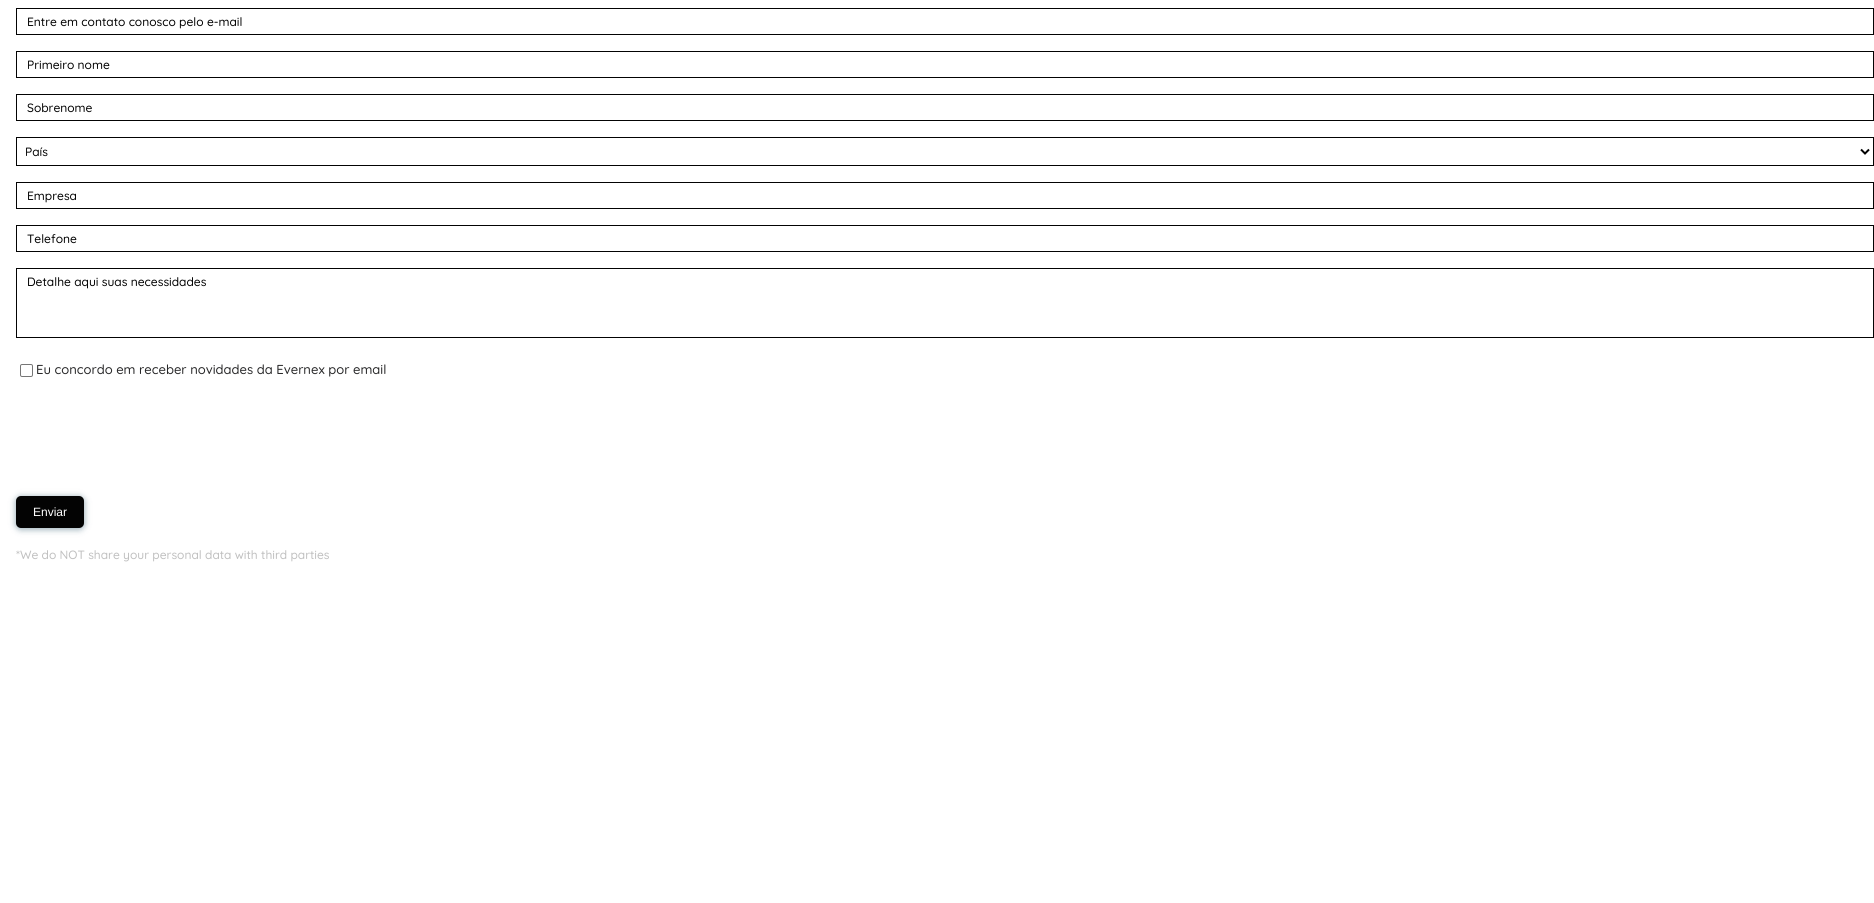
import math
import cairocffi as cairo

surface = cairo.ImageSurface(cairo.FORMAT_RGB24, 1874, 903)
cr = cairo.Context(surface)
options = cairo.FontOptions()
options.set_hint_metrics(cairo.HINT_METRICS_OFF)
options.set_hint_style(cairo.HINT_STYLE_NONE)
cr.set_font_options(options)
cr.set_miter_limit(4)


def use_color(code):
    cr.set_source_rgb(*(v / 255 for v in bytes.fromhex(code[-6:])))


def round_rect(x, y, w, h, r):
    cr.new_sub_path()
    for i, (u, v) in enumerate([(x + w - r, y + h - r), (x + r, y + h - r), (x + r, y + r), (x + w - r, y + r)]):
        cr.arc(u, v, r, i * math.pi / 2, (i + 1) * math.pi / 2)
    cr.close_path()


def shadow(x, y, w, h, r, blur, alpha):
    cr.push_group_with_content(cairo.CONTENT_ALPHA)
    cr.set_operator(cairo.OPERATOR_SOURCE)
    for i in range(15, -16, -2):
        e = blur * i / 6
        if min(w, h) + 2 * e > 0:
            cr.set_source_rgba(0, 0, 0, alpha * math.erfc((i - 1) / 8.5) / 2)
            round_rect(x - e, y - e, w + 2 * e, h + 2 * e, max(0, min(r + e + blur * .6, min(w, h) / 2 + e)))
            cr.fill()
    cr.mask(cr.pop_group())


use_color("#ffffff")
cr.paint()
cr.rectangle(16.5, 8.5, 1857, 26)
use_color("#030303")
cr.set_line_width(1)
cr.stroke()
cr.select_font_face("Quicksand Medium")
cr.set_font_size(12)
use_color("#000000")
cr.move_to(27, 26)
cr.show_text("Entre em contato conosco pelo e-mail")
cr.rectangle(16.5, 51.5, 1857, 26)
use_color("#030303")
cr.stroke()
use_color("#000000")
cr.move_to(27, 69)
cr.show_text("Primeiro nome")
cr.rectangle(16.5, 94.5, 1857, 26)
use_color("#030303")
cr.stroke()
use_color("#000000")
cr.move_to(27, 112)
cr.show_text("Sobrenome")
cr.rectangle(16.5, 137.5, 1857, 28)
use_color("#030303")
cr.stroke()
cr.new_path()
cr.move_to(1861, 149.5)
cr.line_to(1865, 153.5)
cr.line_to(1869, 149.5)
use_color("#000000")
cr.set_line_width(2)
cr.stroke()
cr.move_to(25, 156)
cr.show_text("País")
cr.rectangle(16.5, 182.5, 1857, 26)
use_color("#030303")
cr.set_line_width(1)
cr.stroke()
use_color("#000000")
cr.move_to(27, 200)
cr.show_text("Empresa")
cr.rectangle(16.5, 225.5, 1857, 26)
use_color("#030303")
cr.stroke()
use_color("#000000")
cr.move_to(27, 243)
cr.show_text("Telefone")
cr.rectangle(16.5, 268.5, 1857, 69)
use_color("#030303")
cr.stroke()
use_color("#000000")
cr.move_to(27, 286)
cr.show_text("Detalhe aqui suas necessidades")
round_rect(20.5, 364.5, 12, 12, 1.5)
use_color("#767676")
cr.stroke()
cr.set_font_size(13)
use_color("#282829")
cr.move_to(36, 374)
cr.show_text("Eu concordo em receber novidades da Evernex por email")
use_color("#00334d")
shadow(16, 497, 68, 32, 5, 3.5, 0.45)
use_color("#030303")
round_rect(16, 496, 68, 32, 5)
cr.fill()
cr.select_font_face("Liberation Sans")
cr.set_font_size(12)
use_color("#ffffff")
cr.move_to(33, 516)
cr.show_text("Enviar")
cr.select_font_face("Quicksand Medium")
use_color("#bfbfbf")
cr.move_to(16, 559)
cr.show_text("*We do NOT share your personal data with third parties")
surface.write_to_png("result.png")
